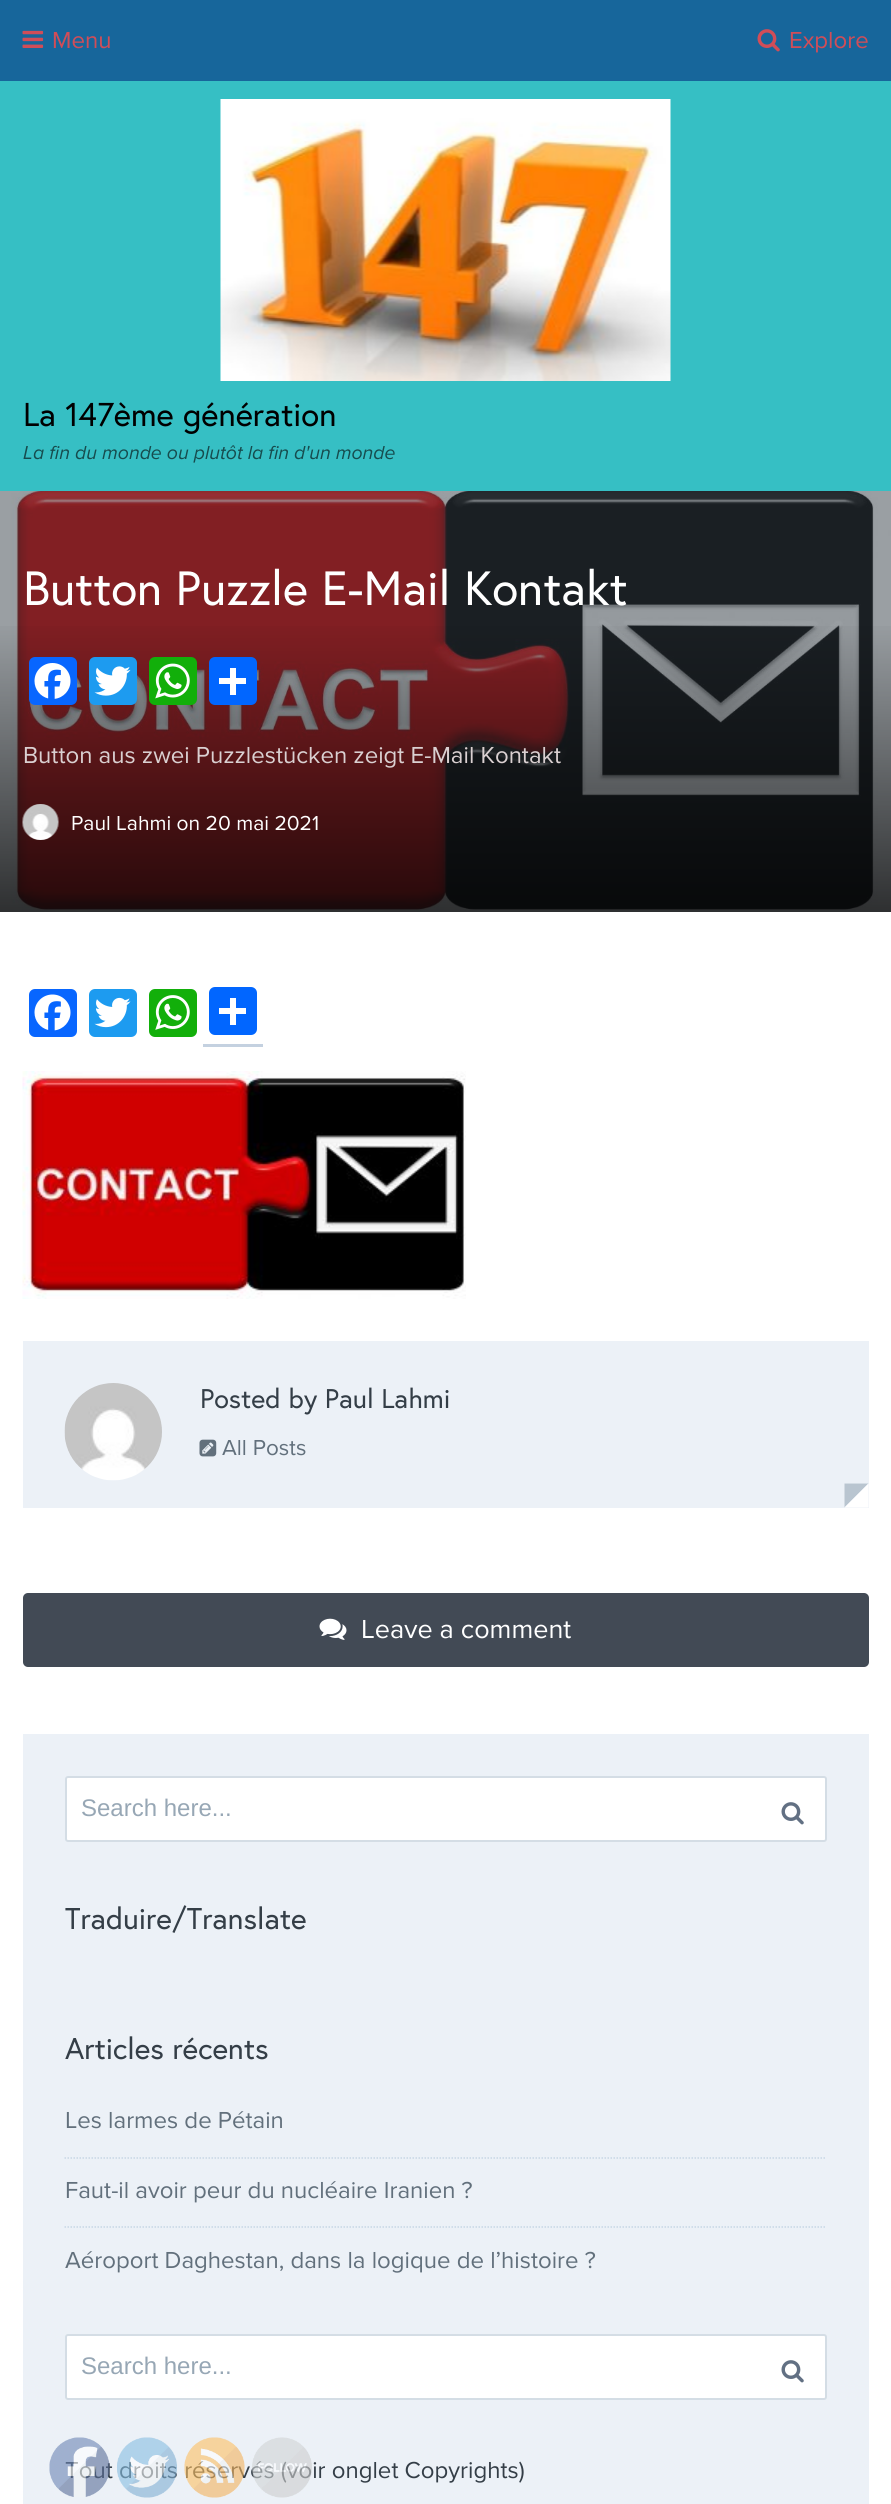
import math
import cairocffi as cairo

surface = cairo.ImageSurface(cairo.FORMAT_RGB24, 891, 2504)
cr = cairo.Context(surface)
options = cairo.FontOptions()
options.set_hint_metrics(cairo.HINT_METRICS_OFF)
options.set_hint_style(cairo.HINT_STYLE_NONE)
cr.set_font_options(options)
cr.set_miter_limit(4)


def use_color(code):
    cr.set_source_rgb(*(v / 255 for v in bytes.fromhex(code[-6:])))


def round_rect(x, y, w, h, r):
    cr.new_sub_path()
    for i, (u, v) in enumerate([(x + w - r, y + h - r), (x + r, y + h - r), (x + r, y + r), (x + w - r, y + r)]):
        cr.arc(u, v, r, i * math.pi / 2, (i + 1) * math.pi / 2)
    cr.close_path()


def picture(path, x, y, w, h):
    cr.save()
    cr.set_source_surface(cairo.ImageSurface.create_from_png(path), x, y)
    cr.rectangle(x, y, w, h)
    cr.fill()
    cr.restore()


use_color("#ffffff")
cr.paint()
use_color("#17669b")
cr.rectangle(0, 0, 891, 81)
cr.fill()
picture("img1.png", 22, 30, 22, 18)
cr.select_font_face("Proxima Nova")
cr.set_font_size(24)
use_color("#d14d58")
cr.move_to(52, 48)
cr.show_text("Menu")
picture("img2.png", 757, 29, 23, 23)
cr.move_to(789, 48)
cr.show_text("Explore")
use_color("#36bfc4")
cr.rectangle(0, 81, 891, 410)
cr.fill()
picture("img3.png", 220, 99, 451, 282)
cr.select_font_face("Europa")
cr.set_font_size(33)
use_color("#000000")
cr.move_to(23, 426)
cr.show_text("La 147ème génération")
cr.select_font_face("Proxima Nova", cairo.FONT_SLANT_ITALIC)
cr.set_font_size(19.5)
use_color("#164c4e")
cr.move_to(23, 459)
cr.show_text("La fin du monde ou plutôt la fin d'un monde")
use_color("#343e47")
cr.rectangle(0, 491, 891, 421)
cr.fill()
picture("img4.png", 0, 491, 891, 421)
gradient = cairo.LinearGradient(446, 491, 446, 912)
gradient.add_color_stop_rgba(0.3, 0, 0, 0, 0)
gradient.add_color_stop_rgba(1, 0, 0, 0, 0.7)
cr.set_source(gradient)
cr.rectangle(0, 626, 891, 286)
cr.fill()
cr.select_font_face("Europa")
cr.set_font_size(48)
use_color("#ffffff")
cr.move_to(23, 605)
cr.show_text("Button Puzzle E-Mail Kontakt")
use_color("#0866ff")
round_rect(29, 657, 48, 48, 6)
cr.fill()
picture("img5.png", 34, 663, 37, 36)
use_color("#1d9bf0")
round_rect(89, 657, 48, 48, 6)
cr.fill()
picture("img6.png", 94, 666, 37, 30)
use_color("#12af0a")
round_rect(149, 657, 48, 48, 6)
cr.fill()
picture("img7.png", 155, 663, 35, 36)
use_color("#0166ff")
round_rect(209, 657, 48, 48, 6)
cr.fill()
use_color("#ffffff")
cr.rectangle(230, 668, 6, 27)
cr.fill()
cr.rectangle(219, 678, 27, 6)
cr.fill()
cr.select_font_face("Proxima Nova")
cr.set_font_size(24)
use_color("#dad0d1")
cr.move_to(23, 763)
cr.show_text("Button aus zwei Puzzlestücken zeigt E-Mail Kontakt")
picture("img8.png", 22, 804, 37, 36)
cr.set_font_size(21)
use_color("#ffffff")
cr.move_to(71, 830)
cr.show_text("Paul Lahmi on 20 mai 2021")
use_color("#0866ff")
round_rect(29, 989, 48, 48, 6)
cr.fill()
picture("img9.png", 34, 994, 37, 37)
use_color("#1d9bf0")
round_rect(89, 989, 48, 48, 6)
cr.fill()
picture("img10.png", 94, 997, 37, 31)
use_color("#12af0a")
round_rect(149, 989, 48, 48, 6)
cr.fill()
picture("img11.png", 155, 995, 35, 35)
use_color("#c4d1e0")
cr.rectangle(203, 1044, 60, 3)
cr.fill()
use_color("#0166ff")
round_rect(209, 987, 48, 48, 6)
cr.fill()
use_color("#ffffff")
cr.rectangle(230, 998, 6, 27)
cr.fill()
cr.rectangle(219, 1008, 27, 6)
cr.fill()
picture("img12.png", 22, 1071, 444, 228)
use_color("#ecf1f7")
cr.rectangle(23, 1341, 846, 167)
cr.fill()
picture("img13.png", 64, 1383, 98, 98)
cr.select_font_face("Europa")
cr.set_font_size(27)
use_color("#343e47")
cr.move_to(200, 1408)
cr.show_text("Posted by Paul Lahmi")
picture("img14.png", 199, 1439, 18, 18)
cr.select_font_face("Proxima Nova")
cr.set_font_size(22.5)
use_color("#62707c")
cr.move_to(222, 1455)
cr.show_text("All Posts")
use_color("#b9c5d0")
cr.new_path()
cr.move_to(844.5, 1483.5)
cr.line_to(868.5, 1483.5)
cr.line_to(844.5, 1507.5)
cr.close_path()
cr.fill()
use_color("#ffffff")
cr.new_path()
cr.move_to(868.5, 1483.5)
cr.line_to(868.5, 1507.5)
cr.line_to(844.5, 1507.5)
cr.close_path()
cr.fill()
use_color("#424a55")
round_rect(23, 1593, 846, 74, 5)
cr.fill()
picture("img15.png", 319, 1618, 28, 22)
cr.set_font_size(27)
use_color("#ffffff")
cr.move_to(361, 1638)
cr.show_text("Leave a comment")
use_color("#ecf1f7")
cr.rectangle(23, 1734, 846, 770)
cr.fill()
use_color("#ffffff")
round_rect(66, 1777, 760, 64, 2)
cr.fill_preserve()
use_color("#d4dde5")
cr.stroke()
cr.select_font_face("Liberation Sans")
cr.set_font_size(24)
use_color("#97a7b5")
cr.move_to(81, 1816)
cr.show_text("Search here...")
picture("img16.png", 781, 1802, 23, 23)
cr.select_font_face("Europa")
cr.set_font_size(30)
use_color("#343e47")
cr.move_to(65, 1929)
cr.show_text("Traduire/Translate")
cr.move_to(65, 2059)
cr.show_text("Articles récents")
cr.new_path()
cr.move_to(64.5, 2158)
cr.line_to(826.5, 2158)
use_color("#c7d6e4")
cr.set_line_width(1.5)
cr.set_dash([1.5, 1.5])
cr.stroke()
cr.select_font_face("Proxima Nova")
cr.set_font_size(24)
use_color("#62707c")
cr.move_to(65, 2128)
cr.show_text("Les larmes de Pétain")
cr.new_path()
cr.move_to(64.5, 2227)
cr.line_to(826.5, 2227)
use_color("#c7d6e4")
cr.stroke()
use_color("#62707c")
cr.move_to(65, 2198)
cr.show_text("Faut-il avoir peur du nucléaire Iranien ?")
cr.move_to(65, 2268)
cr.show_text("Aéroport Daghestan, dans la logique de l’histoire ?")
use_color("#ffffff")
round_rect(66, 2335, 760, 64, 2)
cr.fill_preserve()
use_color("#d4dde5")
cr.set_line_width(2)
cr.set_dash([])
cr.stroke()
cr.select_font_face("Liberation Sans")
use_color("#97a7b5")
cr.move_to(81, 2374)
cr.show_text("Search here...")
picture("img16.png", 781, 2360, 23, 23)
cr.select_font_face("Proxima Nova")
use_color("#343e47")
cr.move_to(65, 2478)
cr.show_text("Tout droits réservés (voir onglet Copyrights)")
picture("img17.png", 49, 2437, 61, 60)
picture("img18.png", 117, 2437, 60, 61)
picture("img19.png", 184, 2437, 61, 61)
picture("img20.png", 252, 2437, 60, 61)
surface.write_to_png("result.png")
